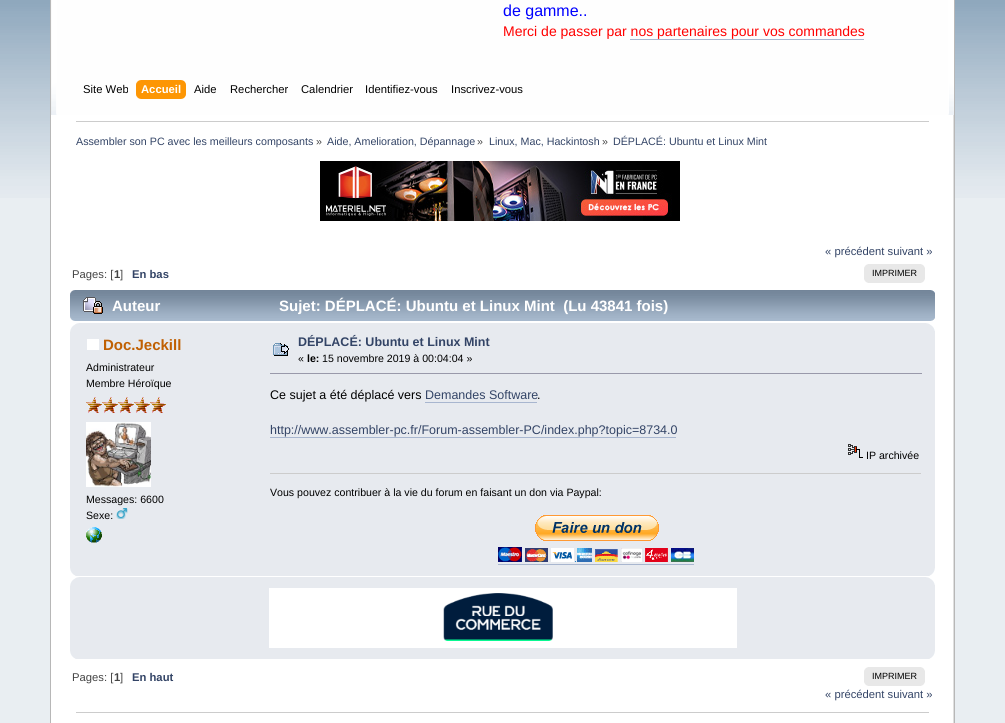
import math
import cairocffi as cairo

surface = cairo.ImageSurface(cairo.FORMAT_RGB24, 1005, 723)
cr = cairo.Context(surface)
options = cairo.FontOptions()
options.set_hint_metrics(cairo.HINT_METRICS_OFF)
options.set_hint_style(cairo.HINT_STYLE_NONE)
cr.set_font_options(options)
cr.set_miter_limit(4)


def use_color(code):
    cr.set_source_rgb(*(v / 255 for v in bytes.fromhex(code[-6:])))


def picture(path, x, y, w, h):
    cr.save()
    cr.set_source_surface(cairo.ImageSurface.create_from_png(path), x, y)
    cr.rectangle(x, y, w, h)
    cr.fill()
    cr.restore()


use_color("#e9eef2")
cr.paint()
picture("img1.png", 0, 0, 1005, 198)
use_color("#fefefe")
cr.rectangle(57, 0, 891, 115)
cr.fill()
picture("img2.png", 50, 0, 7, 115)
picture("img3.png", 948, 0, 7, 115)
cr.select_font_face("Liberation Sans")
cr.set_font_size(16)
use_color("#0000ff")
cr.move_to(503, 16)
cr.show_text("de gamme..")
cr.set_font_size(14)
use_color("#ff0000")
cr.move_to(503, 36)
cr.show_text("Merci de passer par nos partenaires pour vos commandes")
use_color("#a8b6cf")
cr.rectangle(630, 39, 234, 1)
cr.fill()
cr.set_font_size(11.25)
use_color("#000000")
cr.move_to(83, 93)
cr.show_text("Site Web")
picture("img4.png", 141, 80, 45, 19)
picture("img5.png", 136, 80, 5, 19)
cr.select_font_face("Liberation Sans", cairo.FONT_SLANT_NORMAL, cairo.FONT_WEIGHT_BOLD)
use_color("#ffffff")
cr.move_to(141, 93)
cr.show_text("Accueil")
cr.select_font_face("Liberation Sans")
use_color("#000000")
cr.move_to(194, 93)
cr.show_text("Aide")
cr.move_to(230, 93)
cr.show_text("Rechercher")
cr.move_to(301, 93)
cr.show_text("Calendrier")
cr.move_to(365, 93)
cr.show_text("Identifiez-vous")
cr.move_to(451, 93)
cr.show_text("Inscrivez-vous")
use_color("#ffffff")
cr.rectangle(51, 115, 902, 608)
cr.fill()
use_color("#b7b7b7")
cr.rectangle(50, 115, 1, 608)
cr.fill()
picture("img6.png", 953, 115, 2, 608)
use_color("#cccccc")
cr.rectangle(76, 121, 853, 1)
cr.fill()
cr.set_font_size(10.7)
use_color("#334466")
cr.move_to(76, 145)
cr.show_text("Assembler son PC avec les meilleurs composants")
use_color("#444444")
cr.move_to(316, 145)
cr.show_text("»")
use_color("#334466")
cr.move_to(327, 145)
cr.show_text("Aide, Amelioration, Dépannage")
use_color("#444444")
cr.move_to(477, 145)
cr.show_text("»")
use_color("#334466")
cr.move_to(489, 145)
cr.show_text("Linux, Mac, Hackintosh")
use_color("#444444")
cr.move_to(602, 145)
cr.show_text("»")
use_color("#334466")
cr.move_to(613, 145)
cr.show_text("DÉPLACÉ: Ubuntu et Linux Mint")
picture("img7.png", 320, 161, 360, 60)
cr.set_font_size(11.25)
cr.move_to(825, 255)
cr.show_text("« précédent suivant »")
use_color("#444444")
cr.move_to(72, 278)
cr.show_text("Pages: [")
cr.select_font_face("Liberation Sans", cairo.FONT_SLANT_NORMAL, cairo.FONT_WEIGHT_BOLD)
cr.move_to(114, 278)
cr.show_text("1")
cr.select_font_face("Liberation Sans")
cr.move_to(120, 278)
cr.show_text("]")
cr.select_font_face("Liberation Sans", cairo.FONT_SLANT_NORMAL, cairo.FONT_WEIGHT_BOLD)
use_color("#334466")
cr.move_to(132, 278)
cr.show_text("En bas")
use_color("#e8e8e8")
cr.rectangle(868, 264, 53, 19)
cr.fill()
picture("img8.png", 864, 264, 4, 19)
picture("img9.png", 921, 264, 4, 19)
cr.select_font_face("Liberation Sans")
cr.set_font_size(9)
use_color("#000000")
cr.move_to(872, 276)
cr.show_text("IMPRIMER")
picture("img10.png", 70, 290, 860, 31)
picture("img11.png", 930, 290, 5, 31)
picture("img12.png", 83, 297, 20, 17)
cr.select_font_face("Liberation Sans", cairo.FONT_SLANT_NORMAL, cairo.FONT_WEIGHT_BOLD)
cr.set_font_size(15)
use_color("#ffffff")
cr.move_to(112, 311)
cr.show_text("Auteur")
cr.move_to(279, 311)
cr.show_text("Sujet: DÉPLACÉ: Ubuntu et Linux Mint  (Lu 43841 fois)")
use_color("#e7eaef")
cr.rectangle(70, 323, 865, 253)
cr.fill()
picture("img13.png", 70, 323, 9, 9)
picture("img14.png", 926, 323, 9, 8)
use_color("#ffffff")
cr.rectangle(87, 339, 12, 11)
cr.fill()
use_color("#c06002")
cr.move_to(103, 350)
cr.show_text("Doc.Jeckill")
cr.select_font_face("Liberation Sans")
cr.set_font_size(10.6)
use_color("#000000")
cr.move_to(86, 371)
cr.show_text("Administrateur")
cr.move_to(86, 387)
cr.show_text("Membre Héroïque")
picture("img15.png", 86, 397, 16, 16)
picture("img15.png", 102, 397, 16, 16)
picture("img15.png", 118, 397, 16, 16)
picture("img15.png", 134, 397, 16, 16)
picture("img15.png", 150, 397, 16, 16)
picture("img16.png", 86, 422, 65, 65)
cr.move_to(86, 503)
cr.show_text("Messages: 6600")
cr.move_to(86, 519)
cr.show_text("Sexe:")
picture("img17.png", 116, 508, 12, 11)
picture("img18.png", 86, 527, 16, 16)
cr.select_font_face("Liberation Sans", cairo.FONT_SLANT_NORMAL, cairo.FONT_WEIGHT_BOLD)
cr.set_font_size(12.5)
use_color("#334466")
cr.move_to(298, 346)
cr.show_text("DÉPLACÉ: Ubuntu et Linux Mint")
picture("img19.png", 273, 343, 16, 13)
cr.select_font_face("Liberation Sans")
cr.set_font_size(10.6)
use_color("#000000")
cr.move_to(298, 362)
cr.show_text("«")
cr.select_font_face("Liberation Sans", cairo.FONT_SLANT_NORMAL, cairo.FONT_WEIGHT_BOLD)
cr.move_to(307, 362)
cr.show_text("le:")
cr.select_font_face("Liberation Sans")
cr.move_to(322, 362)
cr.show_text("15 novembre 2019 à 00:04:04 »")
use_color("#9999aa")
cr.rectangle(270, 373, 652, 1)
cr.fill()
cr.set_font_size(12.5)
use_color("#000000")
cr.move_to(270, 399)
cr.show_text("Ce sujet a été déplacé vers")
use_color("#334466")
cr.move_to(425, 399)
cr.show_text("Demandes Software")
use_color("#a8b6cf")
cr.rectangle(425, 402, 112, 1)
cr.fill()
use_color("#000000")
cr.move_to(537, 399)
cr.show_text(".")
use_color("#334466")
cr.move_to(270, 434)
cr.show_text("http://www.assembler-pc.fr/Forum-assembler-PC/index.php?topic=8734.0")
use_color("#a8b6cf")
cr.rectangle(270, 437, 406, 1)
cr.fill()
picture("img20.png", 848, 444, 15, 14)
cr.set_font_size(10.6)
use_color("#000000")
cr.move_to(866, 459)
cr.show_text("IP archivée")
use_color("#cccccc")
cr.rectangle(270, 473, 651, 1)
cr.fill()
use_color("#000000")
cr.move_to(270, 496)
cr.show_text("Vous pouvez contribuer à la vie du forum en faisant un don via Paypal:")
picture("img21.png", 498, 515, 196, 47)
use_color("#a8b6cf")
cr.rectangle(498, 564, 196, 1)
cr.fill()
picture("img22.png", 70, 568, 6, 8)
picture("img23.png", 929, 568, 6, 8)
use_color("#e7eaef")
cr.rectangle(70, 577, 865, 82)
cr.fill()
picture("img13.png", 70, 577, 9, 9)
picture("img14.png", 926, 577, 9, 8)
picture("img24.png", 269, 588, 468, 60)
picture("img22.png", 70, 651, 6, 8)
picture("img23.png", 929, 651, 6, 8)
cr.set_font_size(11.25)
use_color("#444444")
cr.move_to(72, 681)
cr.show_text("Pages: [")
cr.select_font_face("Liberation Sans", cairo.FONT_SLANT_NORMAL, cairo.FONT_WEIGHT_BOLD)
cr.move_to(114, 681)
cr.show_text("1")
cr.select_font_face("Liberation Sans")
cr.move_to(120, 681)
cr.show_text("]")
cr.select_font_face("Liberation Sans", cairo.FONT_SLANT_NORMAL, cairo.FONT_WEIGHT_BOLD)
use_color("#334466")
cr.move_to(132, 681)
cr.show_text("En haut")
use_color("#e8e8e8")
cr.rectangle(868, 667, 53, 19)
cr.fill()
picture("img8.png", 864, 667, 4, 19)
picture("img9.png", 921, 667, 4, 19)
cr.select_font_face("Liberation Sans")
cr.set_font_size(9)
use_color("#000000")
cr.move_to(872, 679)
cr.show_text("IMPRIMER")
cr.set_font_size(11.25)
use_color("#334466")
cr.move_to(825, 698)
cr.show_text("« précédent suivant »")
use_color("#cccccc")
cr.rectangle(76, 712, 853, 1)
cr.fill()
surface.write_to_png("result.png")
